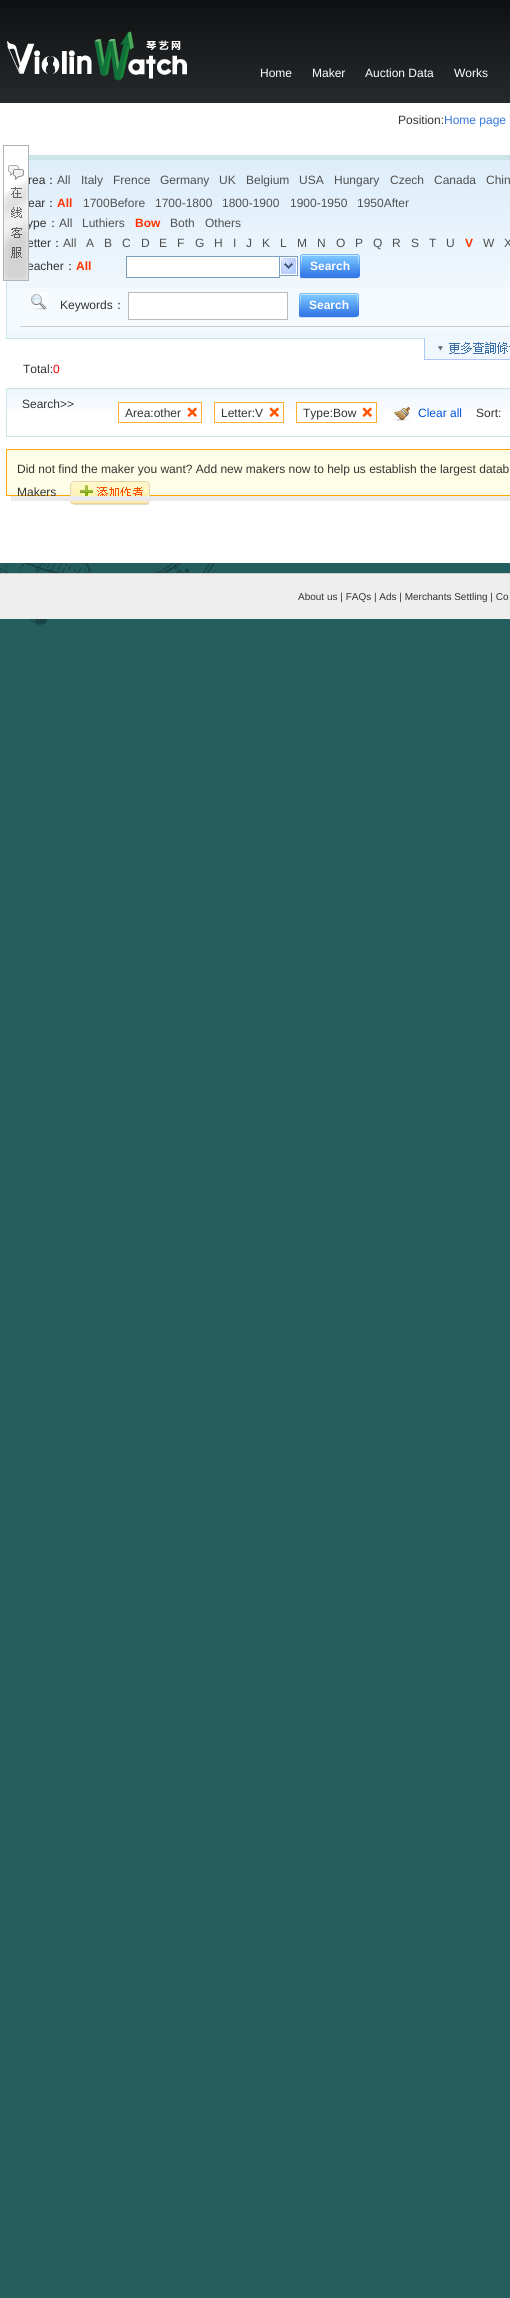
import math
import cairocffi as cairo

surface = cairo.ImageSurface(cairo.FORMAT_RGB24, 510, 2298)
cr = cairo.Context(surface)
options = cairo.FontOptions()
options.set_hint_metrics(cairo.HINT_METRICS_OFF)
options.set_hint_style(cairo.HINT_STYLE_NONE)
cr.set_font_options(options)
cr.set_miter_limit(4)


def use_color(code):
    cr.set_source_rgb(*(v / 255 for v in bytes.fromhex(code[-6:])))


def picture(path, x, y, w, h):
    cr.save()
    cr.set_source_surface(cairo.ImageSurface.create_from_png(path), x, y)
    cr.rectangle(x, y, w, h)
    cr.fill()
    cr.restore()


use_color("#245e5f")
cr.paint()
picture("img1.png", 0, 563, 510, 62)
gradient = cairo.LinearGradient(255, 0, 255, 103)
gradient.add_color_stop_rgba(0, 0.059, 0.063, 0.067, 1)
gradient.add_color_stop_rgba(1, 0.149, 0.165, 0.176, 1)
cr.set_source(gradient)
cr.rectangle(0, 0, 510, 103)
cr.fill()
picture("img2.png", 7, 31, 180, 50)
cr.select_font_face("Liberation Sans")
cr.set_font_size(12)
use_color("#ffffff")
cr.move_to(260, 77)
cr.show_text("Home")
cr.move_to(312, 77)
cr.show_text("Maker")
cr.move_to(365, 77)
cr.show_text("Auction Data")
cr.move_to(454, 77)
cr.show_text("Works")
cr.rectangle(0, 103, 510, 460)
cr.fill()
picture("img4.png", 7, 160, 503, 128)
use_color("#333333")
cr.move_to(28, 184)
cr.show_text("rea")
cr.move_to(28, 207)
cr.show_text("ear")
cr.move_to(27, 227)
cr.show_text("ype")
cr.move_to(27, 247)
cr.show_text("etter")
cr.move_to(27, 270)
cr.show_text("eacher")
picture("img3.png", 3, 145, 26, 136)
cr.move_to(398, 124)
cr.show_text("Position:")
use_color("#3377dd")
cr.move_to(444, 124)
cr.show_text("Home page")
use_color("#f5fafe")
cr.rectangle(7, 288, 503, 44)
cr.fill()
use_color("#cbe4e6")
cr.rectangle(29, 155, 481, 5)
cr.fill()
cr.select_font_face("WenQuanYi Zen Hei Medium")
use_color("#333333")
cr.move_to(45, 184)
cr.show_text("：")
cr.select_font_face("Liberation Sans")
use_color("#4f4f4f")
cr.move_to(57, 184)
cr.show_text("All")
cr.move_to(81, 184)
cr.show_text("Italy")
cr.move_to(113, 184)
cr.show_text("Frence")
cr.move_to(160, 184)
cr.show_text("Germany")
cr.move_to(219, 184)
cr.show_text("UK")
cr.move_to(246, 184)
cr.show_text("Belgium")
cr.move_to(299, 184)
cr.show_text("USA")
cr.move_to(334, 184)
cr.show_text("Hungary")
cr.move_to(390, 184)
cr.show_text("Czech")
cr.move_to(434, 184)
cr.show_text("Canada")
cr.move_to(486, 184)
cr.show_text("Chin")
cr.select_font_face("WenQuanYi Zen Hei Medium")
use_color("#333333")
cr.move_to(45, 207)
cr.show_text("：")
cr.select_font_face("Liberation Sans", cairo.FONT_SLANT_NORMAL, cairo.FONT_WEIGHT_BOLD)
use_color("#ff3300")
cr.move_to(57, 207)
cr.show_text("All")
cr.select_font_face("Liberation Sans")
use_color("#4f4f4f")
cr.move_to(83, 207)
cr.show_text("1700Before")
cr.move_to(155, 207)
cr.show_text("1700-1800")
cr.move_to(222, 207)
cr.show_text("1800-1900")
cr.move_to(290, 207)
cr.show_text("1900-1950")
cr.move_to(357, 207)
cr.show_text("1950After")
cr.select_font_face("WenQuanYi Zen Hei Medium")
use_color("#333333")
cr.move_to(47, 227)
cr.show_text("：")
cr.select_font_face("Liberation Sans")
use_color("#4f4f4f")
cr.move_to(59, 227)
cr.show_text("All")
cr.move_to(82, 227)
cr.show_text("Luthiers")
cr.select_font_face("Liberation Sans", cairo.FONT_SLANT_NORMAL, cairo.FONT_WEIGHT_BOLD)
use_color("#ff3300")
cr.move_to(135, 227)
cr.show_text("Bow")
cr.select_font_face("Liberation Sans")
use_color("#4f4f4f")
cr.move_to(170, 227)
cr.show_text("Both")
cr.move_to(205, 227)
cr.show_text("Others")
cr.select_font_face("WenQuanYi Zen Hei Medium")
use_color("#333333")
cr.move_to(51, 247)
cr.show_text("：")
cr.select_font_face("Liberation Sans")
use_color("#4f4f4f")
cr.move_to(63, 247)
cr.show_text("All")
cr.move_to(86, 247)
cr.show_text("A")
cr.move_to(104, 247)
cr.show_text("B")
cr.move_to(122, 247)
cr.show_text("C")
cr.move_to(141, 247)
cr.show_text("D")
cr.move_to(159, 247)
cr.show_text("E")
cr.move_to(177, 247)
cr.show_text("F")
cr.move_to(195, 247)
cr.show_text("G")
cr.move_to(214, 247)
cr.show_text("H")
cr.move_to(233, 247)
cr.show_text("I")
cr.move_to(246, 247)
cr.show_text("J")
cr.move_to(262, 247)
cr.show_text("K")
cr.move_to(280, 247)
cr.show_text("L")
cr.move_to(297, 247)
cr.show_text("M")
cr.move_to(317, 247)
cr.show_text("N")
cr.move_to(336, 247)
cr.show_text("O")
cr.move_to(355, 247)
cr.show_text("P")
cr.move_to(373, 247)
cr.show_text("Q")
cr.move_to(392, 247)
cr.show_text("R")
cr.move_to(411, 247)
cr.show_text("S")
cr.move_to(429, 247)
cr.show_text("T")
cr.move_to(446, 247)
cr.show_text("U")
cr.select_font_face("Liberation Sans", cairo.FONT_SLANT_NORMAL, cairo.FONT_WEIGHT_BOLD)
use_color("#ff3300")
cr.move_to(465, 247)
cr.show_text("V")
cr.select_font_face("Liberation Sans")
use_color("#4f4f4f")
cr.move_to(483, 247)
cr.show_text("W")
cr.move_to(504, 247)
cr.show_text("X")
cr.select_font_face("WenQuanYi Zen Hei Medium")
use_color("#333333")
cr.move_to(64, 270)
cr.show_text("：")
cr.select_font_face("Liberation Sans", cairo.FONT_SLANT_NORMAL, cairo.FONT_WEIGHT_BOLD)
use_color("#ff3300")
cr.move_to(76, 270)
cr.show_text("All")
use_color("#ffffff")
cr.rectangle(126.5, 256.5, 153, 21)
cr.fill_preserve()
use_color("#7b9ebd")
cr.set_line_width(1)
cr.stroke()
picture("img5.png", 280, 256, 18, 20)
picture("img6.png", 300, 254, 55, 25)
picture("img7.png", 355, 254, 5, 25)
use_color("#ffffff")
cr.move_to(310, 270)
cr.show_text("Search")
use_color("#cccccc")
cr.rectangle(20, 326, 490, 1)
cr.fill()
picture("img8.png", 30, 292, 19, 18)
cr.select_font_face("Liberation Sans")
use_color("#333333")
cr.move_to(60, 309)
cr.show_text("Keywords")
cr.select_font_face("WenQuanYi Zen Hei Medium")
cr.move_to(113, 309)
cr.show_text("：")
use_color("#ffffff")
cr.rectangle(128.5, 292.5, 159, 27)
cr.fill_preserve()
use_color("#bbbbbb")
cr.stroke()
picture("img6.png", 299, 293, 55, 25)
picture("img7.png", 354, 293, 5, 25)
cr.select_font_face("Liberation Sans", cairo.FONT_SLANT_NORMAL, cairo.FONT_WEIGHT_BOLD)
use_color("#ffffff")
cr.move_to(309, 309)
cr.show_text("Search")
use_color("#eff7ff")
cr.rectangle(6, 332, 504, 6)
cr.fill()
use_color("#cbe4e6")
cr.rectangle(6, 338, 418, 1)
cr.fill()
cr.rectangle(6, 281, 1, 58)
cr.fill()
picture("img9.png", 424, 338, 86, 22)
cr.select_font_face("Liberation Sans")
use_color("#333333")
cr.move_to(23, 373)
cr.show_text("Total:")
use_color("#ff0000")
cr.move_to(53, 373)
cr.show_text("0")
picture("img10.png", 7, 389, 503, 22)
cr.rectangle(6.5, 388.5, 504, 48)
use_color("#cbe4e6")
cr.stroke()
use_color("#333333")
cr.move_to(22, 408)
cr.show_text("Search>>")
use_color("#ffffff")
cr.rectangle(119, 403, 82, 8)
cr.fill()
picture("img11.png", 187, 407, 10, 10)
cr.rectangle(118.5, 402.5, 83, 20)
use_color("#feaf30")
cr.stroke()
use_color("#333333")
cr.move_to(125, 417)
cr.show_text("Area:other")
use_color("#ffffff")
cr.rectangle(215, 403, 68, 8)
cr.fill()
picture("img11.png", 269, 407, 10, 10)
cr.rectangle(214.5, 402.5, 69, 20)
use_color("#feaf30")
cr.stroke()
use_color("#333333")
cr.move_to(221, 417)
cr.show_text("Letter:V")
use_color("#ffffff")
cr.rectangle(297, 403, 79, 8)
cr.fill()
picture("img11.png", 362, 407, 10, 10)
cr.rectangle(296.5, 402.5, 80, 20)
use_color("#feaf30")
cr.stroke()
use_color("#333333")
cr.move_to(303, 417)
cr.show_text("Type:Bow")
picture("img12.png", 393, 406, 17, 15)
use_color("#0053df")
cr.move_to(418, 417)
cr.show_text("Clear all")
use_color("#333333")
cr.move_to(476, 417)
cr.show_text("Sort:")
use_color("#ffffe7")
cr.rectangle(6.5, 449.5, 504, 46)
cr.fill_preserve()
use_color("#ffa800")
cr.stroke()
use_color("#333333")
cr.move_to(17, 473)
cr.show_text("Did not find the maker you want? Add new makers now to help us establish the largest datab")
cr.move_to(17, 496)
cr.show_text("Makers")
picture("img13.png", 70, 481, 80, 24)
use_color("#ebebeb")
cr.rectangle(11, 496, 499, 5)
cr.fill()
use_color("#eeeeee")
cr.rectangle(0, 574, 510, 45)
cr.fill()
use_color("#cccccc")
cr.rectangle(0, 573, 510, 1)
cr.fill()
cr.set_font_size(10)
use_color("#333333")
cr.move_to(298, 600)
cr.show_text("About us | FAQs | Ads | Merchants Settling | Co")
surface.write_to_png("result.png")
